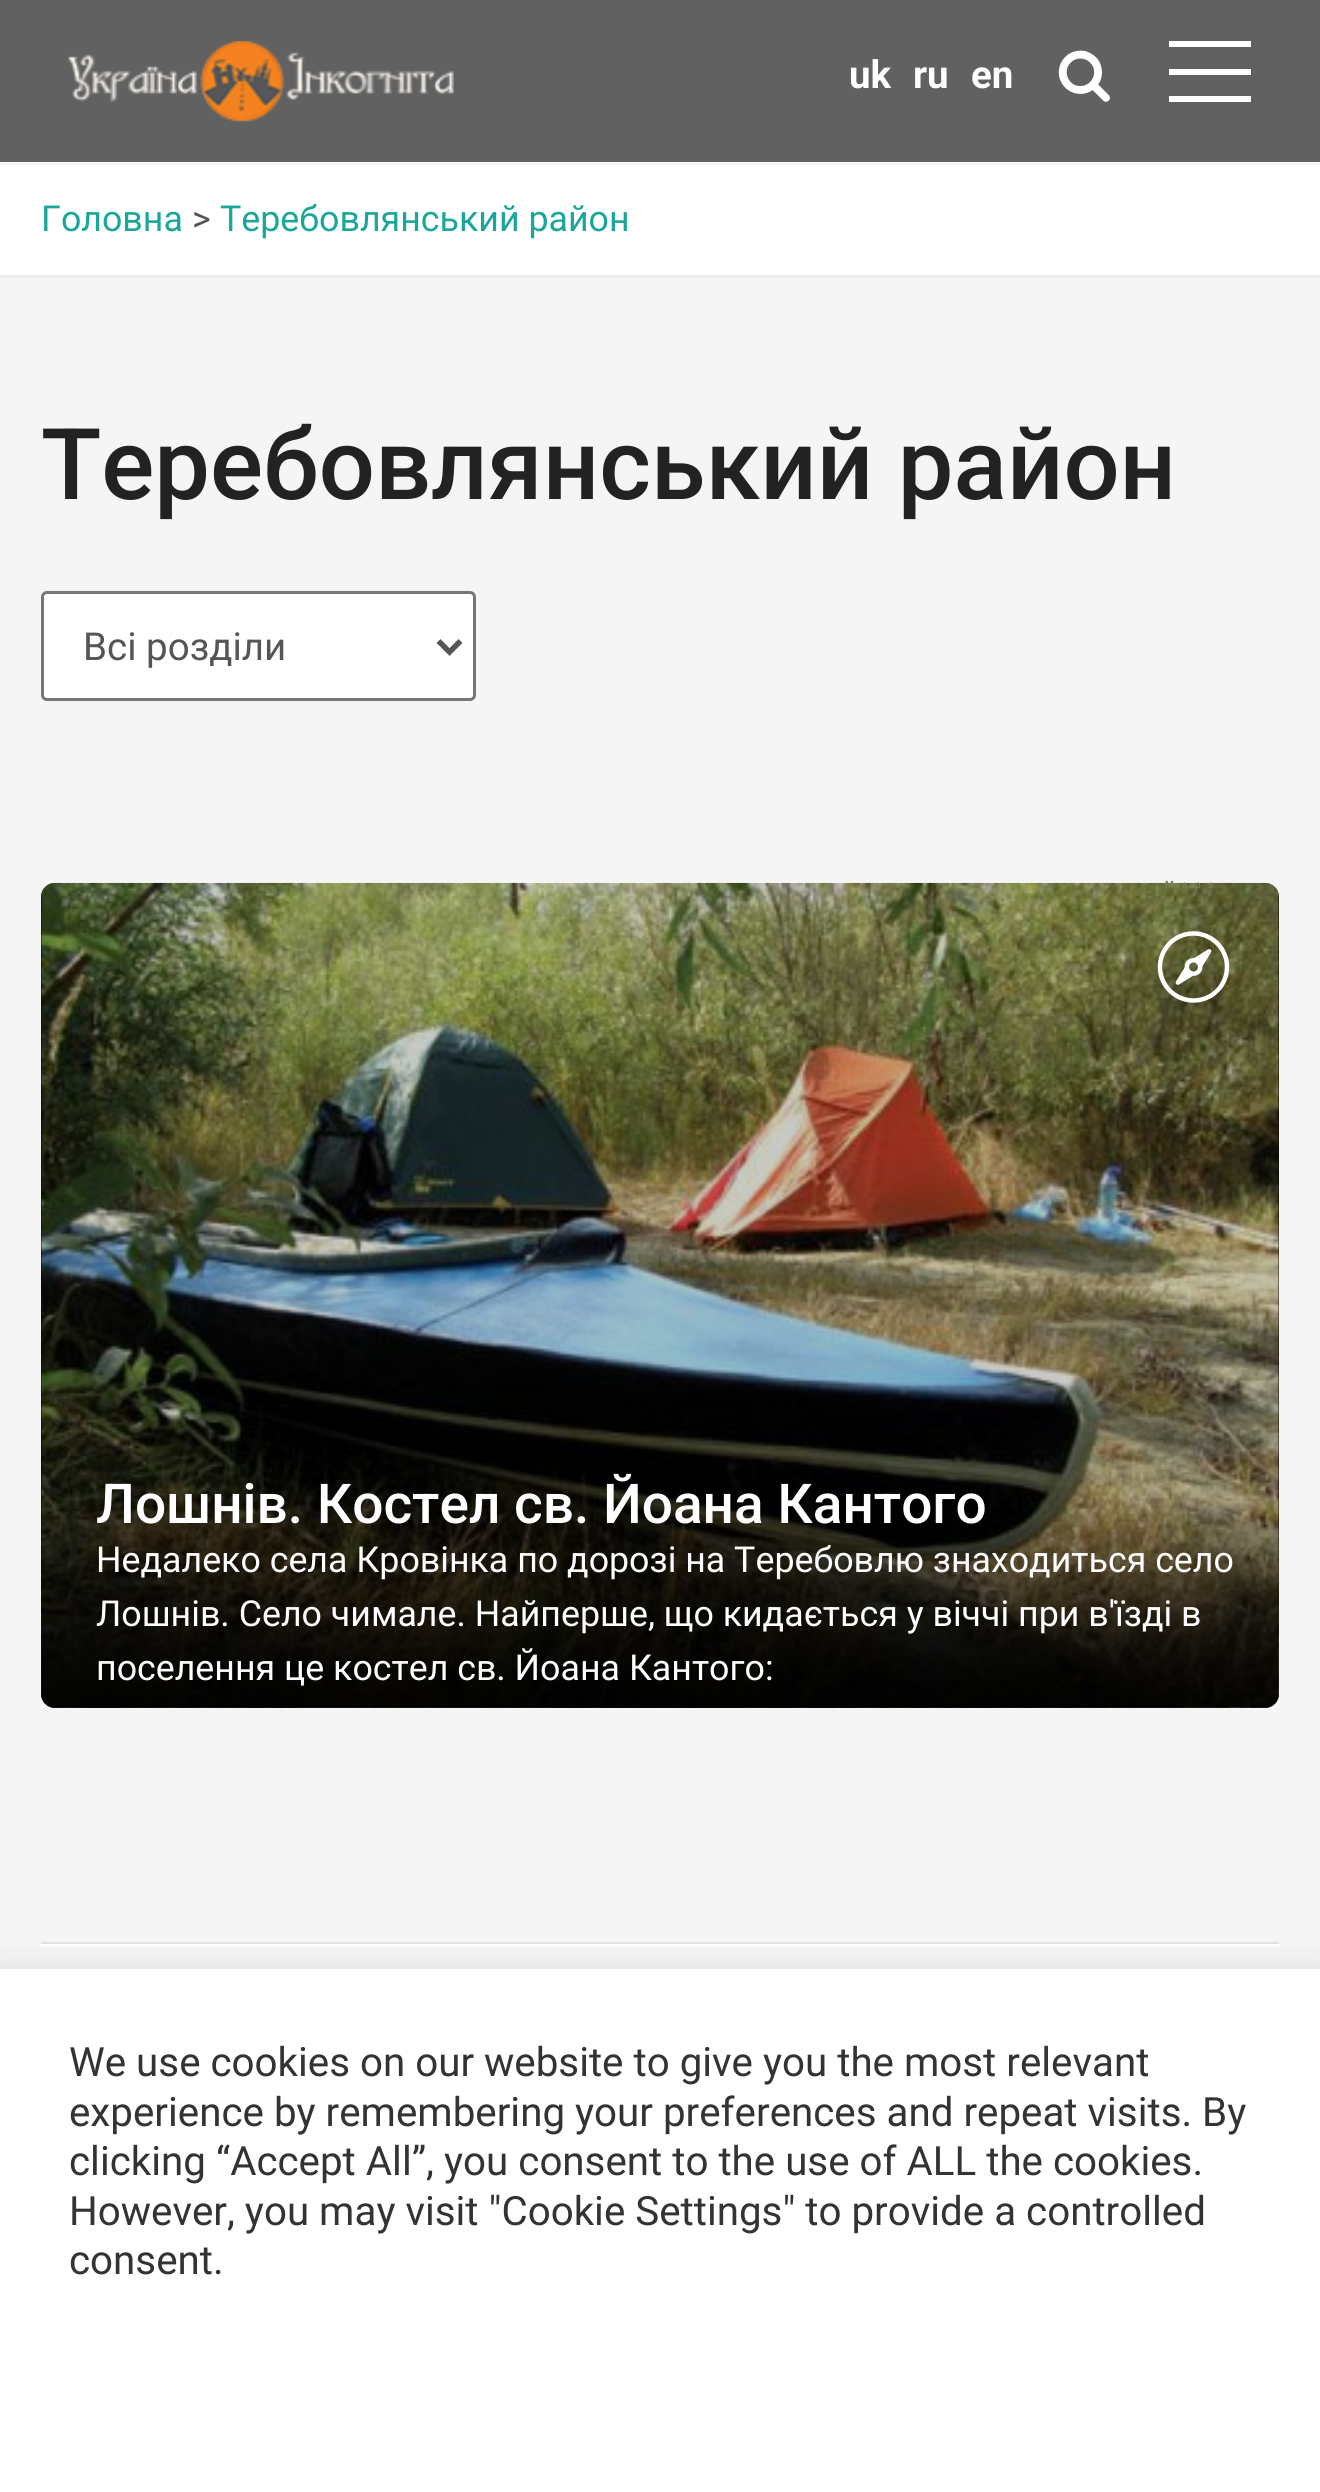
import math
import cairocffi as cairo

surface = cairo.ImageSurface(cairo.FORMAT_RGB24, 1320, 2492)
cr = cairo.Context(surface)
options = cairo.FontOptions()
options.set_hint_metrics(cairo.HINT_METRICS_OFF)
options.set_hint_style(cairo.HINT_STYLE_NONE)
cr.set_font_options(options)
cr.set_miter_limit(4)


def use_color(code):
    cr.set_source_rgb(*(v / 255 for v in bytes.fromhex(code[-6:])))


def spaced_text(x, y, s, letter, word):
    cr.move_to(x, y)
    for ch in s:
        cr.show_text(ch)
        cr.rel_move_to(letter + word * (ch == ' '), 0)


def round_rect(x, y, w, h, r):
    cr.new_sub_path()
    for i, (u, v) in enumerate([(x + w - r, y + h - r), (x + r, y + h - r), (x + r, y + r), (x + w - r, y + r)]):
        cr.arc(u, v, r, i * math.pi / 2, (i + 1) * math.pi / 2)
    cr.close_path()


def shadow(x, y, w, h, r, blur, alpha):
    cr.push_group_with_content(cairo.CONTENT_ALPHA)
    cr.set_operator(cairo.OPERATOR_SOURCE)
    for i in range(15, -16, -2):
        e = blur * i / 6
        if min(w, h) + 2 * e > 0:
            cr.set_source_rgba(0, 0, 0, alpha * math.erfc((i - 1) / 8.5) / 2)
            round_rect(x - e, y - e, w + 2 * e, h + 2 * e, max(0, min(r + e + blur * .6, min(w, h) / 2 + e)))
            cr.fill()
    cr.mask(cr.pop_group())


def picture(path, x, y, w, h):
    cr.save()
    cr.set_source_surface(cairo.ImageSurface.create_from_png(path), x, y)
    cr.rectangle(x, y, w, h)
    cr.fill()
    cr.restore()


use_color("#f5f5f5")
cr.paint()
use_color("#616161")
cr.rectangle(0, 0, 1320, 162)
cr.fill()
picture("img1.png", 68, 41, 386, 81)
cr.select_font_face("Roboto", cairo.FONT_SLANT_NORMAL, cairo.FONT_WEIGHT_BOLD)
cr.set_font_size(38.5)
use_color("#ffffff")
cr.move_to(849, 88)
cr.show_text("uk")
cr.move_to(913, 88)
cr.show_text("ru")
cr.move_to(971, 88)
cr.show_text("en")
picture("img2.png", 1058, 50, 52, 52)
cr.rectangle(1169, 69, 82, 6)
cr.fill()
cr.rectangle(1169, 41, 82, 6)
cr.fill()
cr.rectangle(1169, 96, 82, 6)
cr.fill()
cr.rectangle(0, 165, 1320, 110)
cr.fill()
use_color("#ededed")
cr.rectangle(0, 275, 1320, 3)
cr.fill()
cr.select_font_face("Roboto")
cr.set_font_size(35.75)
use_color("#1aa79b")
cr.move_to(41, 231)
cr.show_text("Головна")
use_color("#555555")
cr.move_to(192, 231)
cr.show_text(">")
use_color("#1aa79b")
cr.move_to(220, 231)
cr.show_text("Теребовлянський район")
cr.select_font_face("Roboto Medium")
cr.set_font_size(99)
use_color("#222222")
cr.move_to(41, 499)
cr.show_text("Теребовлянський район")
use_color("#ffffff")
round_rect(42.5, 592.5, 432, 107, 4.5)
cr.fill_preserve()
use_color("#767676")
cr.set_line_width(3)
cr.stroke()
cr.new_path()
cr.move_to(438.5, 641)
cr.line_to(449.5, 652)
cr.line_to(460.5, 641)
use_color("#555555")
cr.set_line_width(5.5)
cr.stroke()
cr.select_font_face("Roboto")
cr.set_font_size(38.5)
cr.move_to(83, 660)
cr.show_text("Всі розділи")
use_color("#000000")
round_rect(41, 883, 1238, 825, 14)
cr.fill()
picture("img4.png", 41, 882, 1238, 826)
cr.select_font_face("Roboto", cairo.FONT_SLANT_NORMAL, cairo.FONT_WEIGHT_BOLD)
cr.set_font_size(10)
use_color("#7a7f56")
spaced_text(1165, 888, "Maps", 8, 0)
picture("img3.png", 1157, 931, 73, 72)
picture("img5.png", 41, 1498, 1238, 210)
cr.select_font_face("Roboto Medium")
cr.set_font_size(55)
use_color("#ffffff")
cr.move_to(96, 1523)
cr.show_text("Лошнів. Костел св. Йоана Кантого")
cr.select_font_face("Roboto")
cr.set_font_size(35.75)
cr.move_to(96, 1572)
cr.show_text("Недалеко села Кровінка по дорозі на Теребовлю знаходиться село")
cr.move_to(96, 1626)
cr.show_text("Лошнів. Село чимале. Найперше, що кидається у віччі при в'їзді в")
cr.move_to(96, 1680)
cr.show_text("поселення це костел св. Йоана Кантого:")
use_color("#e2e2e2")
cr.rectangle(41, 1942, 1238, 2)
cr.fill()
use_color("#ffffff")
cr.rectangle(41, 1944, 1238, 3)
cr.fill()
use_color("#acabab")
shadow(0, 1966, 1320, 526, 0, 14, 0.3)
use_color("#ffffff")
cr.rectangle(0, 1969, 1320, 523)
cr.fill()
cr.set_font_size(40.3)
use_color("#333333")
cr.move_to(69, 2076)
cr.show_text("We use cookies on our website to give you the most relevant")
cr.move_to(69, 2126)
cr.show_text("experience by remembering your preferences and repeat visits. By")
cr.move_to(69, 2175)
cr.show_text("clicking “Accept All”, you consent to the use of ALL the cookies.")
cr.move_to(69, 2225)
cr.show_text("However, you may visit \"Cookie Settings\" to provide a controlled")
cr.move_to(69, 2274)
cr.show_text("consent.")
surface.write_to_png("result.png")
